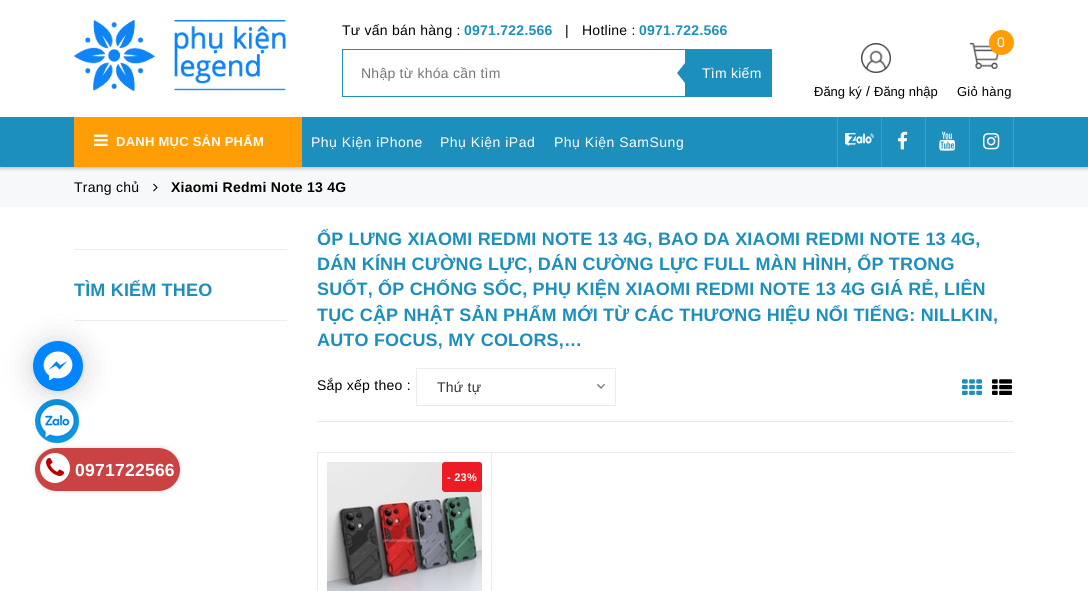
import math
import cairocffi as cairo

surface = cairo.ImageSurface(cairo.FORMAT_RGB24, 1088, 591)
cr = cairo.Context(surface)
options = cairo.FontOptions()
options.set_hint_metrics(cairo.HINT_METRICS_OFF)
options.set_hint_style(cairo.HINT_STYLE_NONE)
cr.set_font_options(options)
cr.set_miter_limit(4)


def use_color(code):
    cr.set_source_rgb(*(v / 255 for v in bytes.fromhex(code[-6:])))


def spaced_text(x, y, s, letter, word):
    cr.move_to(x, y)
    for ch in s:
        cr.show_text(ch)
        cr.rel_move_to(letter + word * (ch == ' '), 0)


def round_rect(x, y, w, h, r):
    cr.new_sub_path()
    for i, (u, v) in enumerate([(x + w - r, y + h - r), (x + r, y + h - r), (x + r, y + r), (x + w - r, y + r)]):
        cr.arc(u, v, r, i * math.pi / 2, (i + 1) * math.pi / 2)
    cr.close_path()


def shadow(x, y, w, h, r, blur, alpha):
    cr.push_group_with_content(cairo.CONTENT_ALPHA)
    cr.set_operator(cairo.OPERATOR_SOURCE)
    for i in range(15, -16, -2):
        e = blur * i / 6
        if min(w, h) + 2 * e > 0:
            cr.set_source_rgba(0, 0, 0, alpha * math.erfc((i - 1) / 8.5) / 2)
            round_rect(x - e, y - e, w + 2 * e, h + 2 * e, max(0, min(r + e + blur * .6, min(w, h) / 2 + e)))
            cr.fill()
    cr.mask(cr.pop_group())


def picture(path, x, y, w, h):
    cr.save()
    cr.set_source_surface(cairo.ImageSurface.create_from_png(path), x, y)
    cr.rectangle(x, y, w, h)
    cr.fill()
    cr.restore()


use_color("#ffffff")
cr.paint()
use_color("#ebebeb")
cr.rectangle(74, 320, 213, 1)
cr.fill()
cr.save()
cr.set_fill_rule(cairo.FILL_RULE_EVEN_ODD)
cr.new_path()
cr.move_to(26, 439)
cr.line_to(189, 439)
cr.line_to(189, 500)
cr.line_to(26, 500)
cr.close_path()
cr.move_to(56.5, 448)
cr.line_to(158.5, 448)
cr.curve_to(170.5, 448, 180, 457.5, 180, 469.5)
cr.curve_to(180, 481.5, 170.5, 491, 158.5, 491)
cr.line_to(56.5, 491)
cr.curve_to(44.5, 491, 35, 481.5, 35, 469.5)
cr.curve_to(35, 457.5, 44.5, 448, 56.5, 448)
cr.close_path()
cr.clip()
use_color("#dddddd")
shadow(35, 448, 145, 43, 21.5, 2.5, 1)
cr.restore()
picture("img15.png", 35, 399, 44, 44)
use_color("#000000")
shadow(33, 343, 50, 50, 25, 16, 0.16)
shadow(33, 342, 50, 50, 25, 3, 0.06)
use_color("#0084ff")
cr.arc(58, 366, 25, 0, 2 * math.pi)
cr.fill()
picture("img1.png", 38, 346, 40, 40)
picture("img2.png", 74, 20, 212, 71)
cr.select_font_face("Liberation Sans")
cr.set_font_size(14)
use_color("#000000")
spaced_text(342, 35, "Tư vấn bán hàng :", 0.25, 0)
cr.select_font_face("Liberation Sans", cairo.FONT_SLANT_NORMAL, cairo.FONT_WEIGHT_BOLD)
use_color("#1d8fbd")
spaced_text(464, 35, "0971.722.566", 0.25, 0)
cr.select_font_face("Liberation Sans")
use_color("#000000")
spaced_text(565, 35, "|", 0.25, 0)
spaced_text(582, 35, "Hotline :", 0.25, 0)
cr.select_font_face("Liberation Sans", cairo.FONT_SLANT_NORMAL, cairo.FONT_WEIGHT_BOLD)
use_color("#1d8fbd")
spaced_text(639, 35, "0971.722.566", 0.25, 0)
cr.rectangle(342.5, 49.5, 343, 47)
cr.set_line_width(1)
cr.stroke()
cr.select_font_face("Liberation Sans")
use_color("#757575")
spaced_text(361, 78, "Nhập từ khóa cần tìm", 0.25, 0)
use_color("#1d8fbd")
cr.rectangle(686, 49, 86, 48)
cr.fill()
cr.new_path()
cr.move_to(685, 63)
cr.line_to(685, 83)
cr.line_to(677, 73)
cr.close_path()
cr.fill()
use_color("#ffffff")
spaced_text(702, 78, "Tìm kiếm", 0.25, 0)
picture("img3.png", 861, 43, 30, 30)
cr.set_font_size(13)
use_color("#000000")
cr.move_to(814, 96)
cr.show_text("Đăng ký")
cr.set_font_size(14)
spaced_text(866, 96, "/", 0.25, 0)
cr.set_font_size(13)
cr.move_to(874, 96)
cr.show_text("Đăng nhập")
picture("img4.png", 970, 43, 29, 26)
use_color("#ff9d06")
cr.arc(1001.5, 42.5, 12.5, 0, 2 * math.pi)
cr.fill()
cr.set_font_size(14)
use_color("#ffffff")
spaced_text(997, 47, "0", 0.25, 0)
cr.set_font_size(13)
use_color("#000000")
spaced_text(957, 96, "Giỏ hàng", 0.25, 0)
use_color("#f7f8f9")
cr.rectangle(0, 167, 1088, 40)
cr.fill()
use_color("#000000")
shadow(0, 119, 1088, 50, 0, 1.5, 0.2)
use_color("#1d8fbd")
cr.rectangle(0, 117, 1088, 50)
cr.fill()
use_color("#ff9d06")
cr.rectangle(74, 117, 228, 50)
cr.fill()
picture("img5.png", 94, 134, 14, 12)
cr.select_font_face("Liberation Sans", cairo.FONT_SLANT_NORMAL, cairo.FONT_WEIGHT_BOLD)
use_color("#ffffff")
spaced_text(116, 146, "DANH MỤC SẢN PHẨM", 0.25, 0)
cr.select_font_face("Liberation Sans")
cr.set_font_size(14)
spaced_text(311, 147, "Phụ Kiện iPhone", 0.5, 0)
spaced_text(440, 147, "Phụ Kiện iPad", 0.5, 0)
spaced_text(554, 147, "Phụ Kiện SamSung", 0.5, 0)
use_color("#3fa0c7")
cr.rectangle(881, 117, 1, 50)
cr.fill()
cr.rectangle(837, 117, 1, 50)
cr.fill()
picture("img6.png", 845, 133, 29, 13)
cr.rectangle(925, 117, 1, 50)
cr.fill()
picture("img7.png", 898, 131, 10, 19)
cr.rectangle(969, 117, 1, 50)
cr.fill()
picture("img8.png", 939, 131, 16, 20)
cr.rectangle(1013, 117, 1, 50)
cr.fill()
picture("img9.png", 983, 133, 17, 17)
use_color("#000000")
spaced_text(74, 192, "Trang chủ", 0.25, 0)
picture("img10.png", 153, 183, 5, 9)
cr.select_font_face("Liberation Sans", cairo.FONT_SLANT_NORMAL, cairo.FONT_WEIGHT_BOLD)
spaced_text(171, 192, "Xiaomi Redmi Note 13 4G", 0.25, 0)
use_color("#ebebeb")
cr.rectangle(74, 249, 213, 1)
cr.fill()
cr.set_font_size(18)
use_color("#1d8fbd")
spaced_text(74, 296, "TÌM KIẾM THEO", 0.18, 0)
spaced_text(317, 245, "ỐP LƯNG XIAOMI REDMI NOTE 13 4G, BAO DA XIAOMI REDMI NOTE 13 4G,", 0.18, 0)
spaced_text(317, 270, "DÁN KÍNH CƯỜNG LỰC, DÁN CƯỜNG LỰC FULL MÀN HÌNH, ỐP TRONG", 0.18, 0)
spaced_text(317, 295, "SUỐT, ỐP CHỐNG SỐC, PHỤ KIỆN XIAOMI REDMI NOTE 13 4G GIÁ RẺ, LIÊN", 0.18, 0)
spaced_text(317, 321, "TỤC CẬP NHẬT SẢN PHẨM MỚI TỪ CÁC THƯƠNG HIỆU NỔI TIẾNG: NILLKIN,", 0.18, 0)
spaced_text(317, 346, "AUTO FOCUS, MY COLORS,…", 0.18, 0)
use_color("#ebebeb")
cr.rectangle(317, 421, 697, 1)
cr.fill()
cr.select_font_face("Liberation Sans")
cr.set_font_size(14)
use_color("#000000")
spaced_text(317, 390, "Sắp xếp theo :", 0.25, 0)
picture("img11.png", 597, 384, 8, 5)
cr.rectangle(416.5, 368.5, 199, 37)
use_color("#ebebeb")
cr.stroke()
use_color("#333333")
spaced_text(437, 392, "Thứ tự", 0.25, 0)
picture("img12.png", 962, 379, 20, 16)
picture("img13.png", 992, 379, 20, 16)
use_color("#ebebeb")
cr.rectangle(317, 452, 697, 1)
cr.fill()
cr.rectangle(317, 452, 1, 139)
cr.fill()
cr.rectangle(491, 453, 1, 138)
cr.fill()
picture("img14.png", 327, 462, 155, 129)
use_color("#ed1c24")
round_rect(442, 462, 40, 30, 3)
cr.fill()
cr.select_font_face("Liberation Sans", cairo.FONT_SLANT_NORMAL, cairo.FONT_WEIGHT_BOLD)
cr.set_font_size(11)
use_color("#ffffff")
spaced_text(447, 481, "- 23%", 0.25, 0)
cr.set_source_rgba(0.718, 0.004, 0, 0.74)
round_rect(35, 448, 145, 43, 21.5)
cr.fill()
use_color("#ffffff")
cr.arc(55, 468, 15, 0, 2 * math.pi)
cr.fill()
picture("img16.png", 46, 457, 19, 19)
cr.set_font_size(17.5)
spaced_text(75, 476, "0971722566", 0.25, 0)
surface.write_to_png("result.png")
